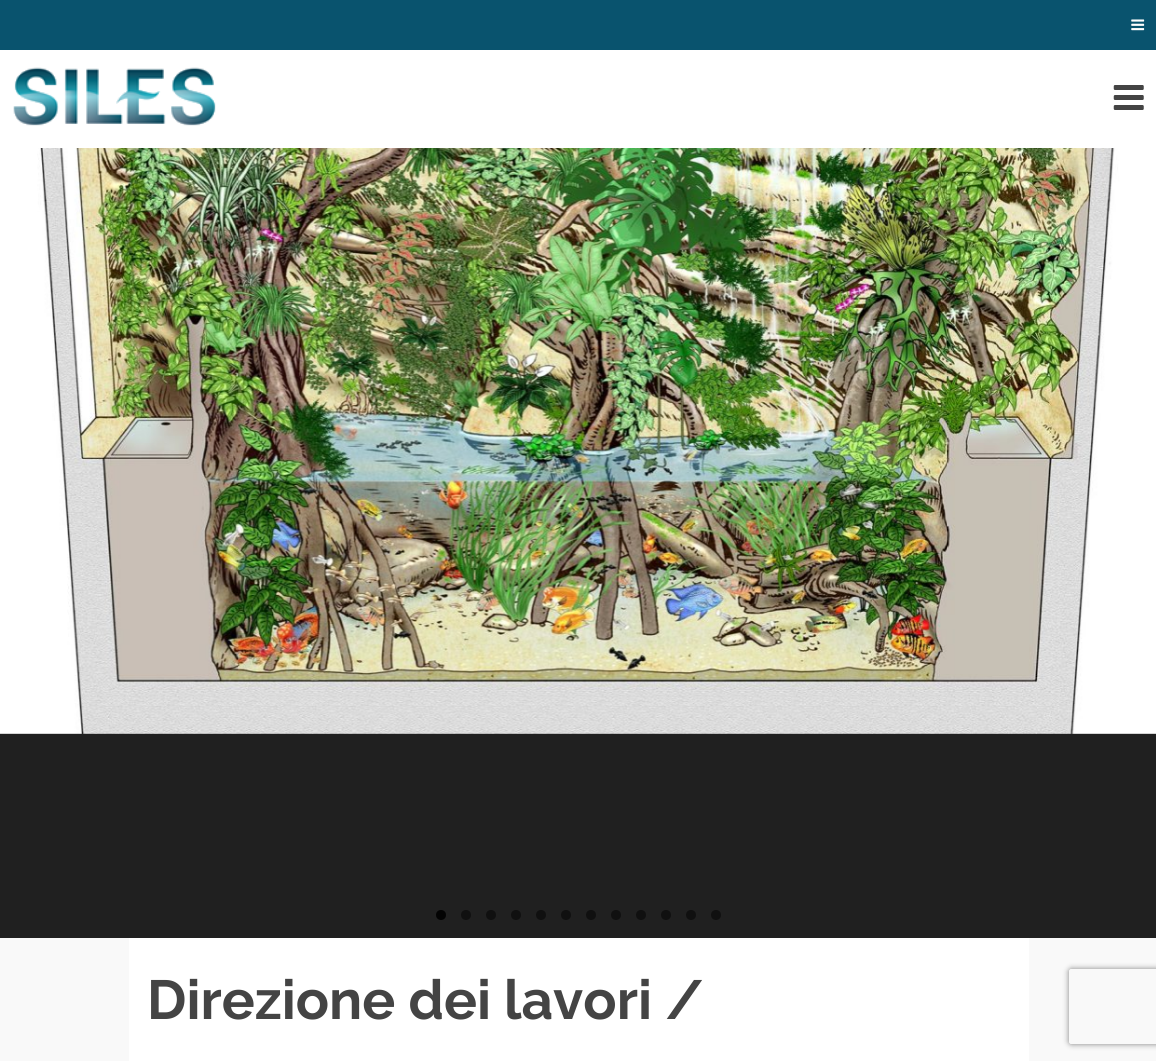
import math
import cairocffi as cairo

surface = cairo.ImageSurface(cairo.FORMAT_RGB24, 1156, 1061)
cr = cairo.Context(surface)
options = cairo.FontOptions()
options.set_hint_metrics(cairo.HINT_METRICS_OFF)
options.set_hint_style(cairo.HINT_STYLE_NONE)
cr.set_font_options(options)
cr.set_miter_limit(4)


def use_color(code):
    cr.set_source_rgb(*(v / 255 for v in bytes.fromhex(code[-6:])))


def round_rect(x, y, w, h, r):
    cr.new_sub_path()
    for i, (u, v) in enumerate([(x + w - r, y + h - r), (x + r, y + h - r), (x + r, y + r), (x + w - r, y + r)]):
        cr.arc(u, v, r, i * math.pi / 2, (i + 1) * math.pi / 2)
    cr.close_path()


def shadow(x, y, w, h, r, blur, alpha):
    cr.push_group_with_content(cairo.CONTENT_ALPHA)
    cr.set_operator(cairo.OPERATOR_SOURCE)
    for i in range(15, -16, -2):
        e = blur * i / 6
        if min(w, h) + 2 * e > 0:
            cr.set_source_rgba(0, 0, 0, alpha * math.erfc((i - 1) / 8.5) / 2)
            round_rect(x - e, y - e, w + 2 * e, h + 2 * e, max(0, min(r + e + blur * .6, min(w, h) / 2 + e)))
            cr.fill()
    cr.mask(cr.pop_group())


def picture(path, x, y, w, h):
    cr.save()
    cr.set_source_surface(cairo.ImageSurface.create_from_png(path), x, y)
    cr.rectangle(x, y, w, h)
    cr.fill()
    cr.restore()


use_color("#f9f9f9")
cr.paint()
use_color("#ffffff")
cr.rectangle(0, 50, 1156, 98)
cr.fill()
use_color("#09536e")
cr.rectangle(0, 0, 1156, 50)
cr.fill()
picture("img1.png", 1131, 19, 14, 12)
picture("img2.png", 13, 67, 203, 59)
picture("img3.png", 1113, 85, 31, 25)
use_color("#202020")
cr.rectangle(0, 733, 1156, 205)
cr.fill()
picture("img4.png", 0, 148, 1156, 586)
use_color("#030303")
cr.arc(441, 915, 5, 0, 2 * math.pi)
cr.fill()
use_color("#101010")
cr.arc(466, 915, 5, 0, 2 * math.pi)
cr.fill()
cr.arc(491, 915, 5, 0, 2 * math.pi)
cr.fill()
cr.arc(516, 915, 5, 0, 2 * math.pi)
cr.fill()
cr.arc(541, 915, 5, 0, 2 * math.pi)
cr.fill()
cr.arc(566, 915, 5, 0, 2 * math.pi)
cr.fill()
cr.arc(591, 915, 5, 0, 2 * math.pi)
cr.fill()
cr.arc(616, 915, 5, 0, 2 * math.pi)
cr.fill()
cr.arc(641, 915, 5, 0, 2 * math.pi)
cr.fill()
cr.arc(666, 915, 5, 0, 2 * math.pi)
cr.fill()
cr.arc(691, 915, 5, 0, 2 * math.pi)
cr.fill()
cr.arc(716, 915, 5, 0, 2 * math.pi)
cr.fill()
use_color("#ffffff")
cr.rectangle(129, 938, 900, 123)
cr.fill()
cr.select_font_face("Raleway", cairo.FONT_SLANT_NORMAL, cairo.FONT_WEIGHT_BOLD)
cr.set_font_size(55)
use_color("#444444")
cr.move_to(147, 1019)
cr.show_text("Direzione dei lavori /")
cr.save()
cr.set_fill_rule(cairo.FILL_RULE_EVEN_ODD)
cr.new_path()
cr.move_to(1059, 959)
cr.line_to(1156, 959)
cr.line_to(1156, 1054)
cr.line_to(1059, 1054)
cr.close_path()
cr.move_to(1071.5, 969)
cr.line_to(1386.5, 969)
cr.curve_to(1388, 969, 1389, 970, 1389, 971.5)
cr.line_to(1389, 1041.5)
cr.curve_to(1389, 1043, 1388, 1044, 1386.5, 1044)
cr.line_to(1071.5, 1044)
cr.curve_to(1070, 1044, 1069, 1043, 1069, 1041.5)
cr.line_to(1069, 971.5)
cr.curve_to(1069, 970, 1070, 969, 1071.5, 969)
cr.close_path()
cr.clip()
use_color("#808080")
shadow(1069, 969, 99, 75, 2.5, 3, 1)
cr.restore()
surface.write_to_png("result.png")
